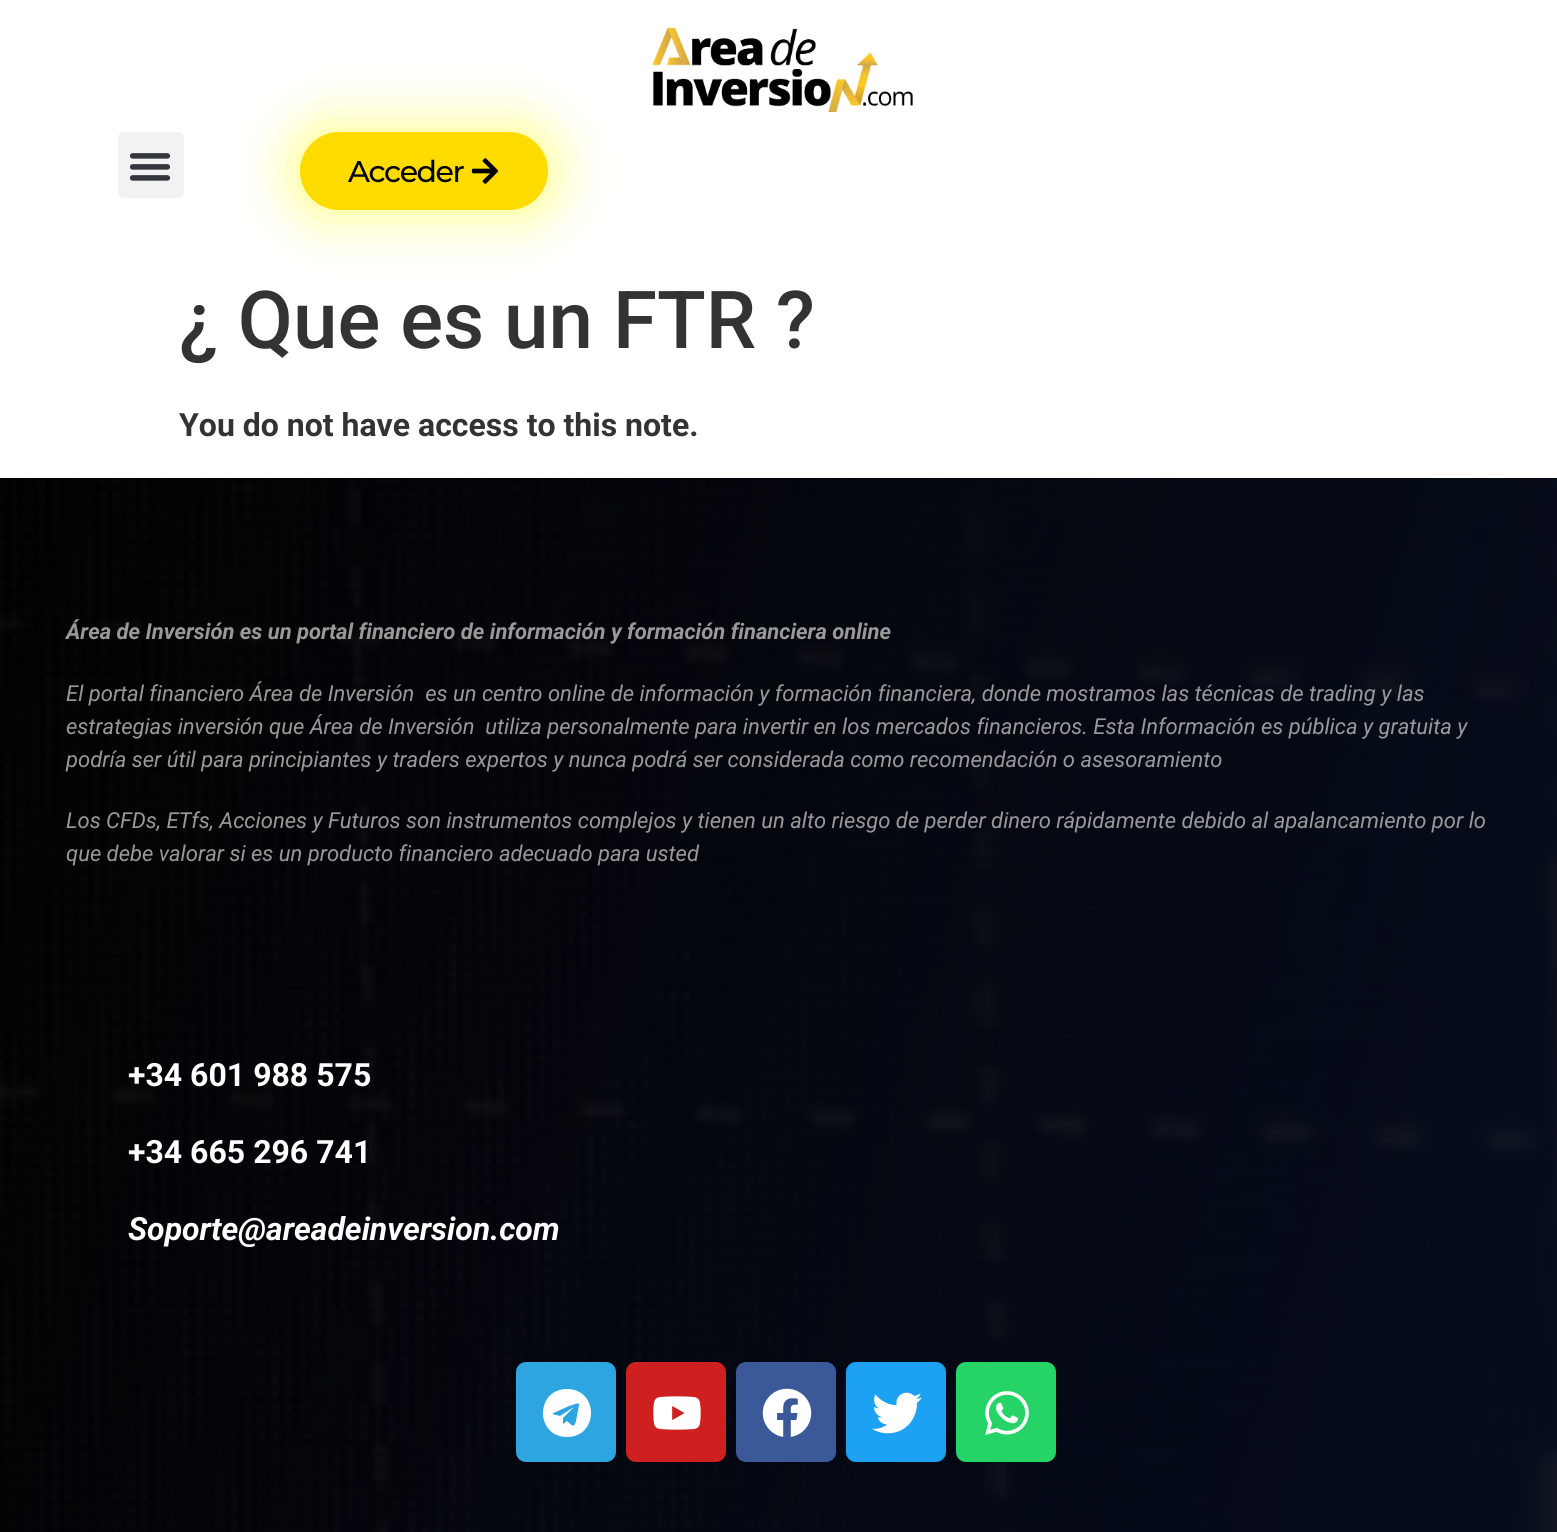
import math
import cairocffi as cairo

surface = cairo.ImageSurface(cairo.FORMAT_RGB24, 1557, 1532)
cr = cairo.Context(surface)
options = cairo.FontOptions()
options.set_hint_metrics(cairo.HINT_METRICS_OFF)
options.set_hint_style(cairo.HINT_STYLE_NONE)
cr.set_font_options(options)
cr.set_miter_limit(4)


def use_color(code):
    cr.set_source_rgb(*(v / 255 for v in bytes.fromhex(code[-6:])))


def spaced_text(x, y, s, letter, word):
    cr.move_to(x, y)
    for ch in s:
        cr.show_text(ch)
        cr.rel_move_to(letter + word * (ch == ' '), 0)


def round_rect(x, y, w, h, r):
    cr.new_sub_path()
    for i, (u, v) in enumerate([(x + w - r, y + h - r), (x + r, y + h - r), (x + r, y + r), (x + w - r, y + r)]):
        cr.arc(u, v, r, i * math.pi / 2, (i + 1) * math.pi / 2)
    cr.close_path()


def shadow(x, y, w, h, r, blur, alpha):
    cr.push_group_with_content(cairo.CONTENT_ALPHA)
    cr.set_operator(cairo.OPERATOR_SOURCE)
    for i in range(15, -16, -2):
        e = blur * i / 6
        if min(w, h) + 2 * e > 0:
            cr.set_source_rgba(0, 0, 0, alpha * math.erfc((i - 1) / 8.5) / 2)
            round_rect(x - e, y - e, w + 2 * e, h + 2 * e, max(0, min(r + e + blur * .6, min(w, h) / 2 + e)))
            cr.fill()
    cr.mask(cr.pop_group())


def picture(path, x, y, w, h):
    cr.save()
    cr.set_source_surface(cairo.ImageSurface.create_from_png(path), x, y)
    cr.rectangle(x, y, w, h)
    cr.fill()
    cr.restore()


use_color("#ffffff")
cr.paint()
picture("img1.png", 652, 27, 261, 85)
use_color("#f2f2f2")
round_rect(118, 132, 66, 66, 6)
cr.fill()
picture("img2.png", 129, 153, 42, 28)
use_color("#feff00")
shadow(300, 132, 248, 78, 39, 30, 0.55)
use_color("#ffdc00")
round_rect(300, 132, 248, 78, 39)
cr.fill()
cr.select_font_face("Montserrat Medium")
cr.set_font_size(30)
use_color("#000000")
spaced_text(348, 182, "Acceder", -1.5, 0)
picture("img3.png", 471, 158, 28, 26)
cr.select_font_face("Roboto Medium")
cr.set_font_size(80)
use_color("#333333")
cr.move_to(179, 348)
cr.show_text("¿ Que es un FTR ?")
cr.select_font_face("Roboto", cairo.FONT_SLANT_NORMAL, cairo.FONT_WEIGHT_BOLD)
cr.set_font_size(32)
cr.move_to(179, 436)
cr.show_text("You do not have access to this note.")
picture("img4.png", 0, 478, 1557, 1054)
cr.select_font_face("Roboto", cairo.FONT_SLANT_ITALIC, cairo.FONT_WEIGHT_BOLD)
cr.set_font_size(22)
use_color("#999999")
cr.move_to(66, 639)
cr.show_text("Área de Inversión es un portal financiero de información y formación financiera online")
cr.select_font_face("Roboto", cairo.FONT_SLANT_ITALIC)
cr.move_to(66, 701)
cr.show_text("El portal financiero Área de Inversión  es un centro online de información y formación financiera, donde mostramos las técnicas de trading y las")
cr.move_to(66, 734)
cr.show_text("estrategias inversión que Área de Inversión  utiliza personalmente para invertir en los mercados financieros. Esta Información es pública y gratuita y")
cr.move_to(66, 767)
cr.show_text("podría ser útil para principiantes y traders expertos y nunca podrá ser considerada como recomendación o asesoramiento")
cr.move_to(66, 828)
cr.show_text("Los CFDs, ETfs, Acciones y Futuros son instrumentos complejos y tienen un alto riesgo de perder dinero rápidamente debido al apalancamiento por lo")
cr.move_to(66, 861)
cr.show_text("que debe valorar si es un producto financiero adecuado para usted")
cr.select_font_face("Roboto", cairo.FONT_SLANT_NORMAL, cairo.FONT_WEIGHT_BOLD)
cr.set_font_size(32)
use_color("#ffffff")
cr.move_to(128, 1086)
cr.show_text("+34 601 988 575")
cr.move_to(128, 1163)
cr.show_text("+34 665 296 741")
cr.select_font_face("Roboto", cairo.FONT_SLANT_ITALIC, cairo.FONT_WEIGHT_BOLD)
cr.move_to(128, 1240)
cr.show_text("Soporte@areadeinversion.com")
use_color("#2ca5e0")
round_rect(516, 1362, 100, 100, 10)
cr.fill()
use_color("#ffffff")
cr.new_path()
cr.move_to(567, 1389)
cr.curve_to(535, 1389, 535, 1437, 567, 1437)
cr.curve_to(599, 1437, 599, 1389, 567, 1389)
cr.close_path()
cr.move_to(579, 1405)
cr.line_to(576, 1421)
cr.curve_to(574, 1429, 572, 1425, 567, 1421)
cr.line_to(563, 1424)
cr.line_to(563, 1418)
cr.line_to(574, 1407)
cr.line_to(560, 1416)
cr.curve_to(554, 1414, 548, 1415, 558, 1411)
cr.line_to(569, 1406)
cr.curve_to(571, 1406, 580, 1401, 579, 1405)
cr.close_path()
cr.fill()
use_color("#cd201f")
round_rect(626, 1362, 100, 100, 10)
cr.fill()
picture("img5.png", 653, 1396, 48, 34)
use_color("#3b5998")
round_rect(736, 1362, 100, 100, 10)
cr.fill()
picture("img6.png", 762, 1388, 50, 49)
use_color("#1da1f2")
round_rect(846, 1362, 100, 100, 10)
cr.fill()
picture("img7.png", 872, 1392, 50, 42)
use_color("#25d366")
round_rect(956, 1362, 100, 100, 10)
cr.fill()
picture("img8.png", 985, 1391, 44, 44)
surface.write_to_png("result.png")
